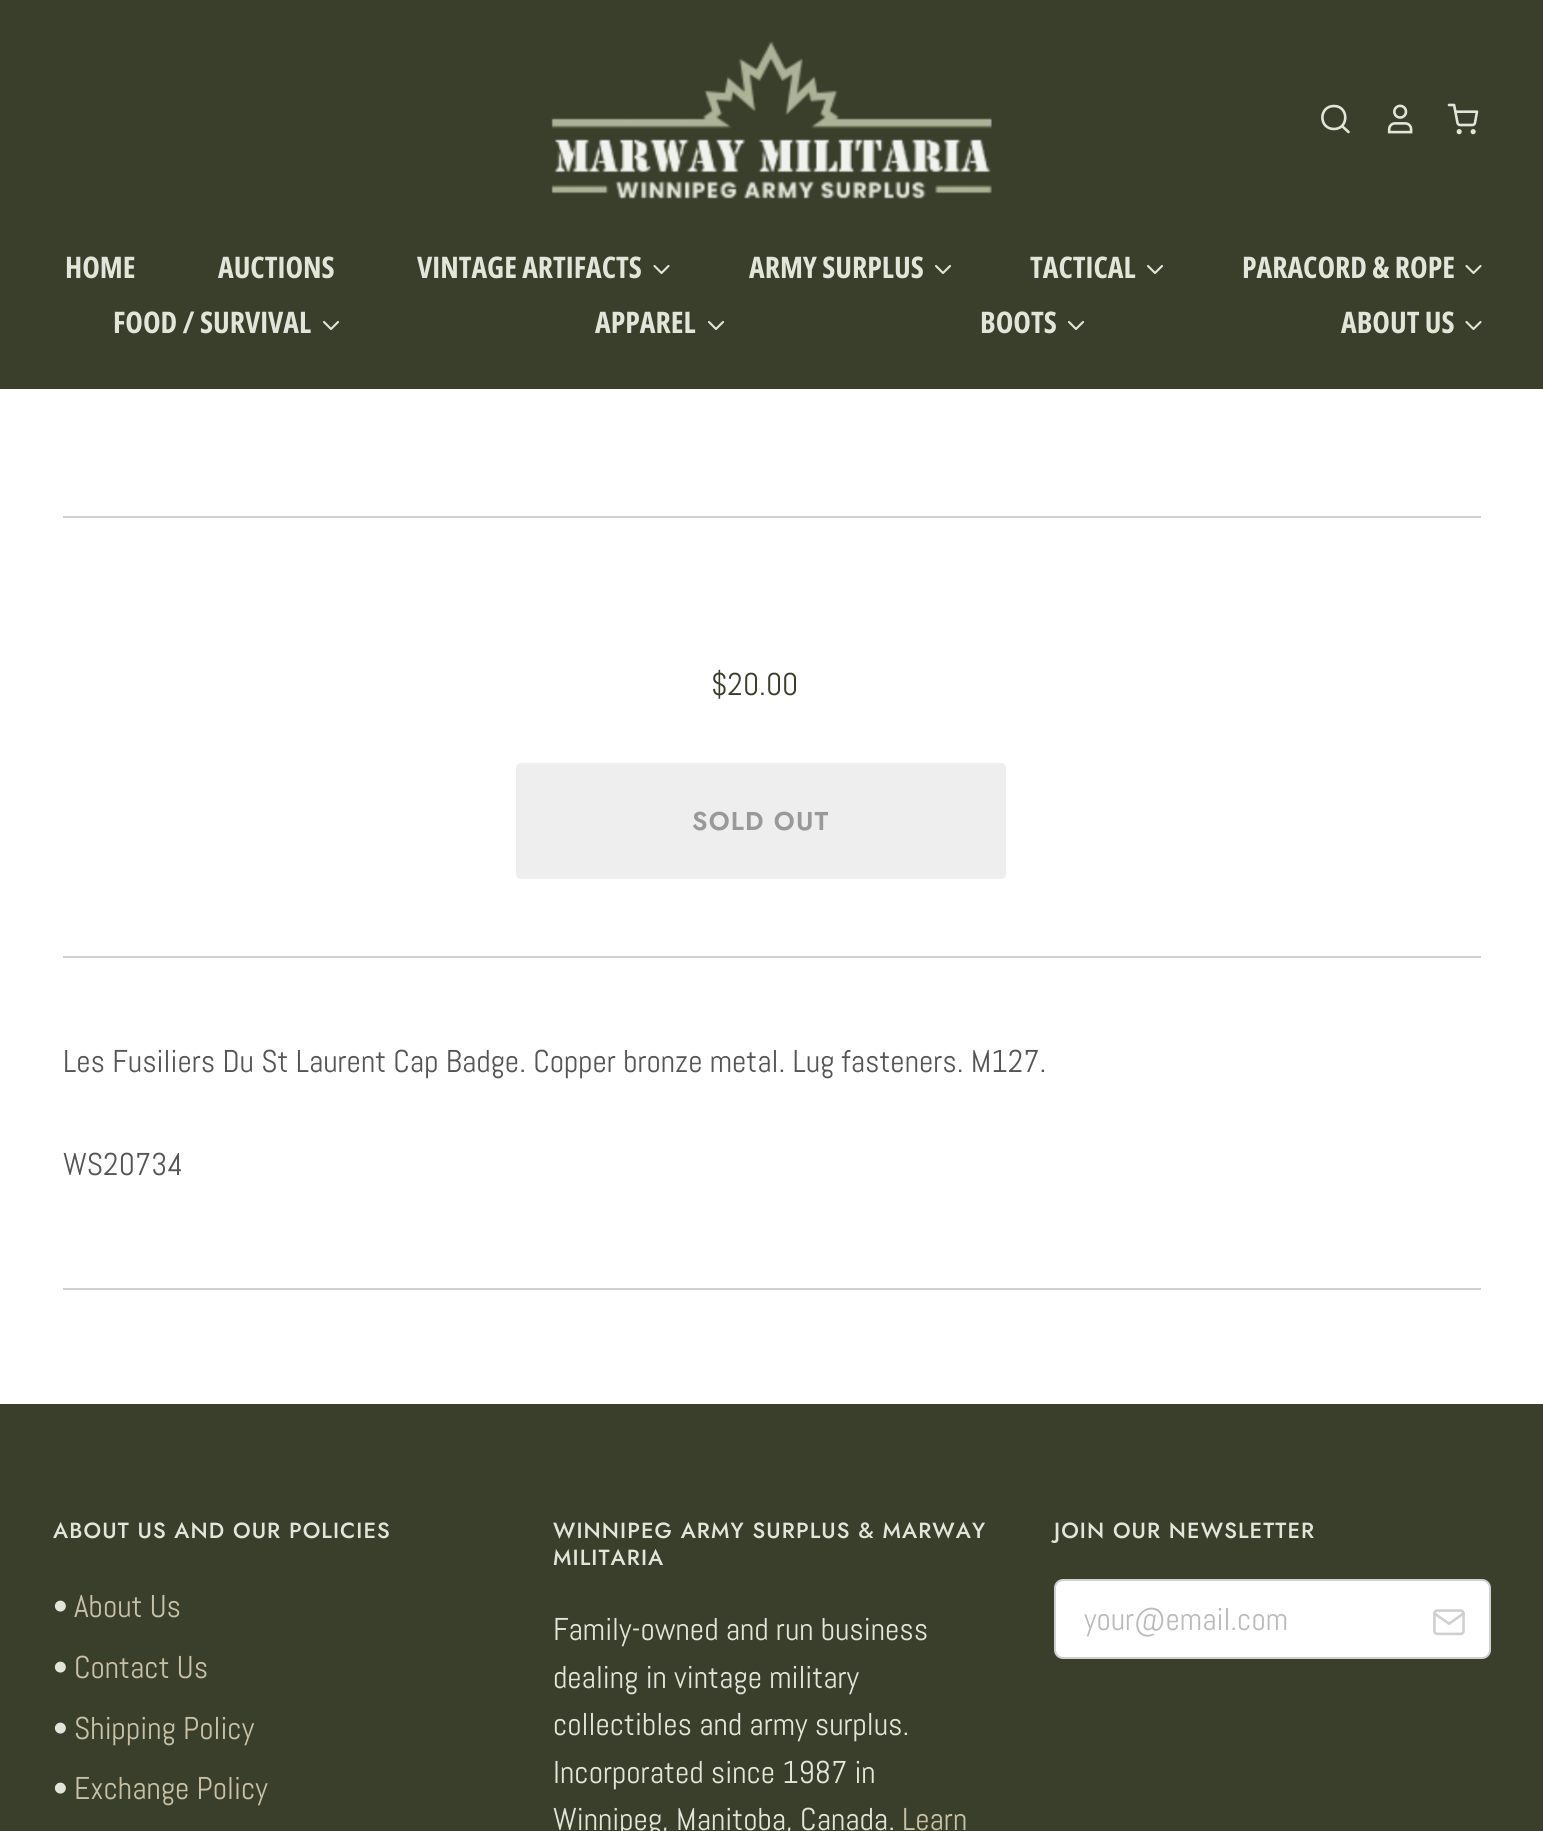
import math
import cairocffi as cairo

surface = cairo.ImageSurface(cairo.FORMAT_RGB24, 1543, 1831)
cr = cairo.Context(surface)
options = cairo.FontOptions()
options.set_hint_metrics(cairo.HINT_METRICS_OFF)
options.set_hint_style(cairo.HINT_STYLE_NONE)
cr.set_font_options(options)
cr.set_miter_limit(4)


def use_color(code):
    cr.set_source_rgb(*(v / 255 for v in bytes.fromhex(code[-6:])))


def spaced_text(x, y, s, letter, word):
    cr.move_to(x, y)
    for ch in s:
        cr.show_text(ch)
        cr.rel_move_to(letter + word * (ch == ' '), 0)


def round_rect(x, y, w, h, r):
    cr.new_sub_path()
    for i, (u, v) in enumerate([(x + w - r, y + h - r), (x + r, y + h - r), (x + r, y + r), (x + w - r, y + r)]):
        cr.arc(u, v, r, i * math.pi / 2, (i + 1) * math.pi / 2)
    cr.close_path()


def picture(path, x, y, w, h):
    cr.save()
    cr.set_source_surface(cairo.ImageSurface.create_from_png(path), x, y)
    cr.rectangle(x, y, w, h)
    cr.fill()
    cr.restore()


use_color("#ffffff")
cr.paint()
use_color("#393f2a")
cr.rectangle(0, 0, 1543, 389)
cr.fill()
picture("img1.png", 551, 41, 441, 158)
cr.new_path()
cr.move_to(1334, 106)
cr.curve_to(1318.5, 106, 1318.5, 129, 1334, 129)
cr.curve_to(1349, 129, 1349, 106, 1334, 106)
cr.close_path()
cr.move_to(1348.5, 132)
cr.line_to(1342, 126)
cr.close_path()
use_color("#e3e5db")
cr.set_line_width(2.6)
cr.set_line_cap(cairo.LINE_CAP_ROUND)
cr.set_line_join(cairo.LINE_JOIN_ROUND)
cr.stroke()
picture("img2.png", 1387, 104, 26, 30)
picture("img3.png", 1447, 103, 32, 32)
cr.select_font_face("Open Sans Condensed", cairo.FONT_SLANT_NORMAL, cairo.FONT_WEIGHT_BOLD)
cr.set_font_size(29.75)
cr.move_to(65, 278)
cr.show_text("HOME")
cr.move_to(218, 278)
cr.show_text("AUCTIONS")
cr.move_to(417, 278)
cr.show_text("VINTAGE ARTIFACTS")
cr.new_path()
cr.move_to(654.5, 266)
cr.line_to(661.5, 273)
cr.line_to(668.5, 266)
cr.set_line_width(2.1)
cr.stroke()
cr.move_to(749, 278)
cr.show_text("ARMY SURPLUS")
cr.new_path()
cr.move_to(936, 266)
cr.line_to(943, 273)
cr.line_to(950, 266)
cr.stroke()
cr.move_to(1030, 278)
cr.show_text("TACTICAL")
cr.new_path()
cr.move_to(1148, 266)
cr.line_to(1155, 273)
cr.line_to(1162, 266)
cr.stroke()
cr.move_to(1242, 278)
cr.show_text("PARACORD & ROPE")
cr.new_path()
cr.move_to(1466.5, 266)
cr.line_to(1473.5, 273)
cr.line_to(1480.5, 266)
cr.stroke()
cr.move_to(113, 333)
cr.show_text("FOOD / SURVIVAL")
cr.new_path()
cr.move_to(324, 322)
cr.line_to(331, 329)
cr.line_to(338, 322)
cr.stroke()
cr.move_to(595, 333)
cr.show_text("APPAREL")
cr.new_path()
cr.move_to(709, 322)
cr.line_to(716, 329)
cr.line_to(723, 322)
cr.stroke()
cr.move_to(980, 333)
cr.show_text("BOOTS")
cr.new_path()
cr.move_to(1069, 322)
cr.line_to(1076, 329)
cr.line_to(1083, 322)
cr.stroke()
cr.move_to(1341, 333)
cr.show_text("ABOUT US")
cr.new_path()
cr.move_to(1466.5, 322)
cr.line_to(1473.5, 329)
cr.line_to(1480.5, 322)
cr.stroke()
use_color("#d0d0d0")
cr.rectangle(63, 516, 1418, 2)
cr.fill()
cr.select_font_face("Abel")
cr.set_font_size(31.5)
use_color("#393f2a")
cr.move_to(711, 695)
cr.show_text("$20.00")
use_color("#eeeeee")
round_rect(516, 763, 490, 116, 5)
cr.fill()
cr.select_font_face("Jost SemiBold")
cr.set_font_size(25.75)
use_color("#999999")
spaced_text(692, 830, "SOLD OUT", 1.25, 0)
use_color("#d0d0d0")
cr.rectangle(63, 956, 1418, 2)
cr.fill()
cr.select_font_face("Abel")
cr.set_font_size(31.5)
use_color("#555555")
cr.move_to(63, 1072)
cr.show_text("Les Fusiliers Du St Laurent Cap Badge. Copper bronze metal. Lug fasteners. M127.")
cr.move_to(63, 1175)
cr.show_text("WS20734")
use_color("#d0d0d0")
cr.rectangle(63, 1288, 1418, 2)
cr.fill()
use_color("#393f2a")
cr.rectangle(0, 1404, 1543, 427)
cr.fill()
cr.select_font_face("Jost Medium")
cr.set_font_size(21.9)
use_color("#e3e5db")
spaced_text(53, 1538, "ABOUT US AND OUR POLICIES", 1.1, 0)
cr.select_font_face("Abel")
cr.set_font_size(31.5)
cr.move_to(53, 1617)
cr.show_text("•")
use_color("#c8c1a6")
cr.move_to(74, 1617)
cr.show_text("About Us")
use_color("#e3e5db")
cr.move_to(53, 1678)
cr.show_text("•")
use_color("#c8c1a6")
cr.move_to(74, 1678)
cr.show_text("Contact Us")
use_color("#e3e5db")
cr.move_to(53, 1739)
cr.show_text("•")
use_color("#c8c1a6")
cr.move_to(74, 1739)
cr.show_text("Shipping Policy")
use_color("#e3e5db")
cr.move_to(53, 1799)
cr.show_text("•")
use_color("#c8c1a6")
cr.move_to(74, 1799)
cr.show_text("Exchange Policy")
cr.select_font_face("Jost Medium")
cr.set_font_size(21.9)
use_color("#e3e5db")
spaced_text(553, 1538, "WINNIPEG ARMY SURPLUS & MARWAY", 1.1, 0)
spaced_text(553, 1565, "MILITARIA", 1.1, 0)
cr.select_font_face("Abel")
cr.set_font_size(31.5)
cr.move_to(553, 1640)
cr.show_text("Family-owned and run business")
cr.move_to(553, 1688)
cr.show_text("dealing in vintage military")
cr.move_to(553, 1735)
cr.show_text("collectibles and army surplus.")
cr.move_to(553, 1783)
cr.show_text("Incorporated since 1987 in")
cr.move_to(553, 1830)
cr.show_text("Winnipeg, Manitoba, Canada.")
use_color("#c8c1a6")
cr.move_to(902, 1830)
cr.show_text("Learn")
cr.select_font_face("Jost Medium")
cr.set_font_size(21.9)
use_color("#e3e5db")
spaced_text(1054, 1538, "JOIN OUR NEWSLETTER", 1.1, 0)
use_color("#ffffff")
round_rect(1055, 1580, 435, 78, 8)
cr.fill_preserve()
use_color("#d0d0d0")
cr.set_line_width(2)
cr.set_line_cap(cairo.LINE_CAP_BUTT)
cr.set_line_join(cairo.LINE_JOIN_MITER)
cr.stroke()
cr.select_font_face("Abel")
cr.set_font_size(31.5)
use_color("#bbbbbb")
cr.move_to(1084, 1630)
cr.show_text("your@email.com")
picture("img4.png", 1433, 1609, 32, 27)
surface.write_to_png("result.png")
